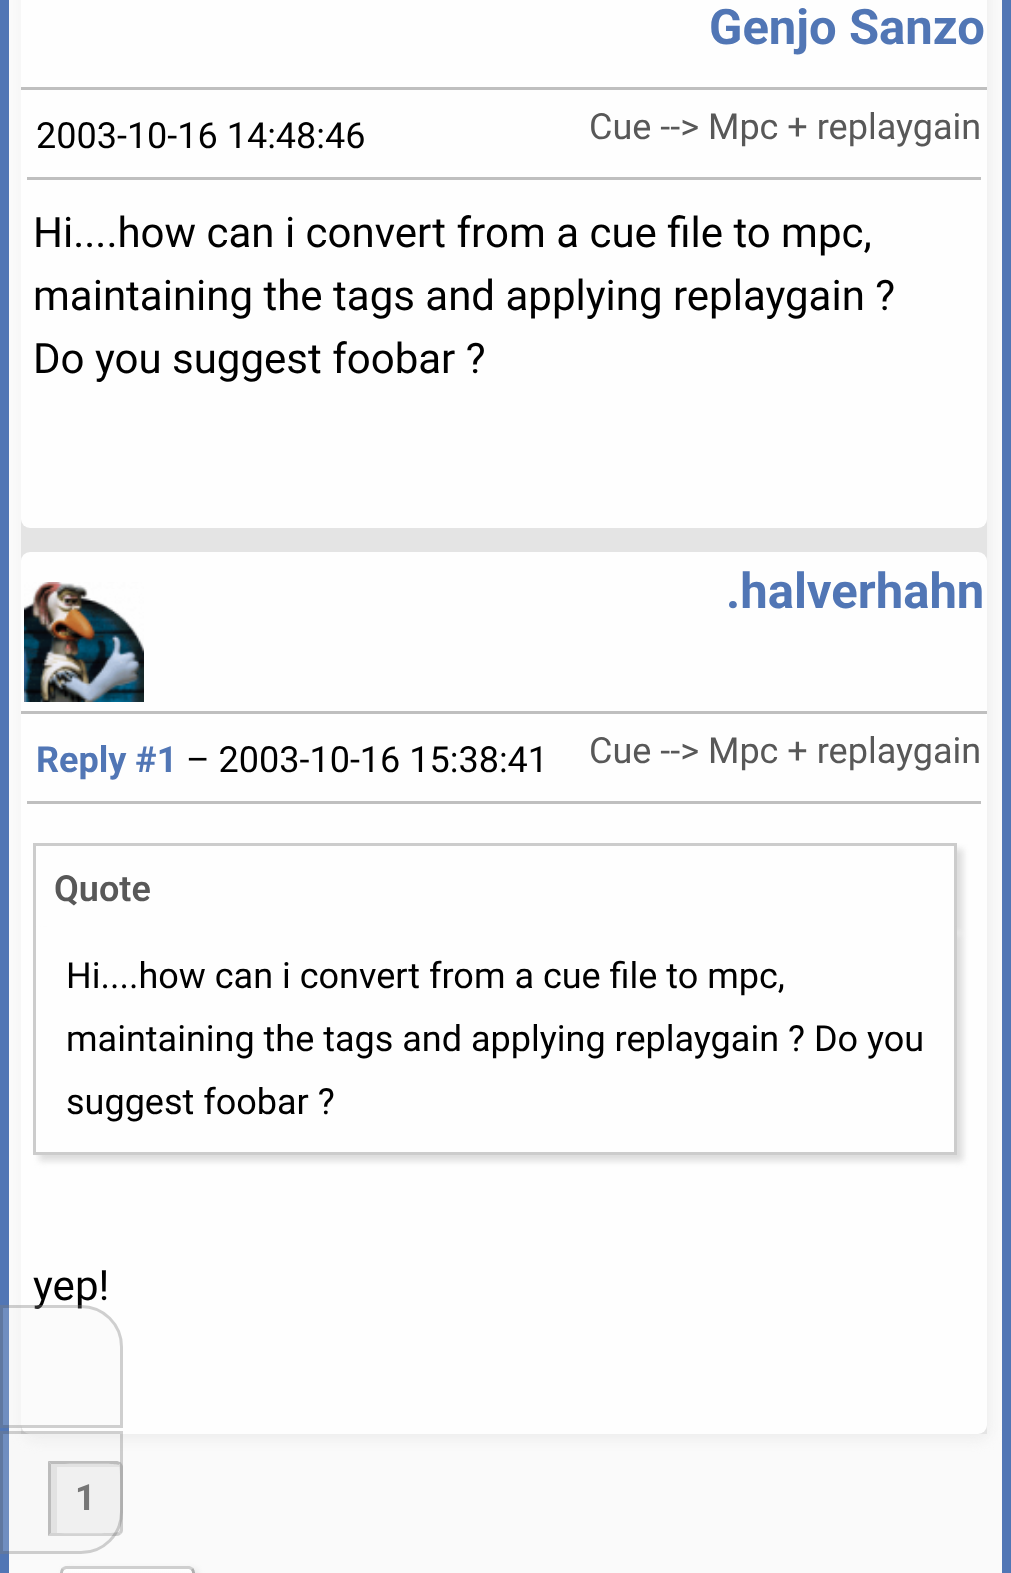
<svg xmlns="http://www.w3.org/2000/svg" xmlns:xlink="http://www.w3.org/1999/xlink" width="1011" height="1573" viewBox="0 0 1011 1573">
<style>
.cls-1{font:bold 49px Roboto;fill:#5176b5}
.cls-2{font:36px Roboto;fill:#000000}
.cls-3{font:36px Roboto;fill:#585858}
.cls-4{font:42px Roboto;fill:#000000}
.cls-5{font:bold 36px Roboto;fill:#5176b5}
.cls-6{font:600 36px Roboto;fill:#585858}
.cls-7{font:bold 36px Roboto;fill:#585858}
</style>
<defs>
<clipPath id="clip1"><rect x="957" y="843" width="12" height="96"/></clipPath>
<clipPath id="clip2"><rect x="60" y="1566" width="135" height="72" rx="6"/></clipPath>
<linearGradient id="g1" gradientUnits="userSpaceOnUse" x1="128" y1="1503" x2="128" y2="1569"><stop offset="0" stop-color="#fefefe"/><stop offset="1" stop-color="#e4e4e4"/></linearGradient>
<linearGradient id="g2" gradientUnits="userSpaceOnUse" x1="128" y1="1569" x2="128" y2="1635"><stop offset="0" stop-color="#fefefe"/><stop offset="1" stop-color="#e4e4e4"/></linearGradient>
</defs>
<rect width="100%" height="100%" fill="#fafafa"/>
<rect fill="none" stroke="#5176b5" stroke-width="9" x="4.5" y="-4.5" width="1002" height="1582"/>
<rect fill="#eeeeee" filter="blur(6px)" x="24" y="-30" width="966" height="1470" rx="12"/>
<rect fill="#e4e4e4" x="21" y="519" width="966" height="915"/>
<rect fill="#fefefe" x="21" y="-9" width="966" height="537" rx="9"/>
<rect fill="#bfbfbf" x="21" y="87" width="966" height="3"/>
<rect fill="#bfbfbf" x="27" y="177" width="954" height="3"/>
<rect fill="#fefefe" x="21" y="552" width="966" height="882" rx="9"/>
<image xlink:href="image0.png" x="24" y="582" width="120" height="120"/>
<rect fill="#bfbfbf" x="21" y="711" width="966" height="3"/>
<rect fill="#bfbfbf" x="27" y="801" width="954" height="3"/>
<g clip-path="url(#clip1)">
<rect fill="#dddddd" filter="blur(3px)" x="39" y="849" width="924" height="84"/>
</g>
<rect fill="#cccccc" x="33" y="843" width="924" height="3"/>
<rect fill="#cccccc" x="954" y="843" width="3" height="84"/>
<rect fill="#cccccc" x="33" y="843" width="3" height="84"/>
<rect fill="#dddddd" filter="blur(3px)" x="39" y="933" width="924" height="228"/>
<rect fill="#fefefe" x="36" y="927" width="918" height="225"/>
<rect fill="#cccccc" x="954" y="927" width="3" height="228"/>
<rect fill="#cccccc" x="33" y="1152" width="924" height="3"/>
<rect fill="#cccccc" x="33" y="927" width="3" height="228"/>
<path fill="#f0f0f0" d="M48 1461H117C120.5 1461 123 1463.5 123 1467V1530C123 1533.5 120.5 1536 117 1536H48Z"/>
<path fill="#dfdfdf" d="M57 1467H120C120 1465 119 1464 117 1464H51V1533H57Z"/>
<path fill="#afafaf" d="M48 1461L51 1464C58 1464 118 1463 119 1465L121 1463C120 1462 118 1461 117 1461Z"/>
<path fill="#cccccc" d="M123 1530V1467C123 1466 122 1464 121 1463L119 1465C121 1467 120 1513 120 1520V1530L119 1532L121 1534C122 1533 123 1532 123 1530Z"/>
<path fill="#cccccc" d="M117 1536C118 1536 120 1535 121 1534L119 1532C118 1534 58 1533 51 1533L48 1536Z"/>
<path fill="#afafaf" d="M48 1461V1536L51 1533V1464Z"/>
<rect fill="#e4e4e4" filter="blur(3px)" x="63" y="1569" width="135" height="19" rx="6"/>
<g clip-path="url(#clip2)">
<rect fill="url(#g1)" x="60" y="1566" width="135" height="3"/>
<rect fill="url(#g2)" x="60" y="1569" width="135" height="4"/>
</g>
<path fill="none" stroke="#cfcfcf" stroke-width="3" d="M63 1569L66 1567.5H189L192 1569"/>
<path fill="none" stroke="#afafaf" stroke-width="3" d="M192 1569C193 1570 193.5 1571 193.5 1572.5V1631.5C193.5 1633 193 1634 192 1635C191 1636 190 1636.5 188.5 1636.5H66.5C65 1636.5 64 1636 63 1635"/>
<path fill="none" stroke="#bfbfbf" stroke-width="3" d="M63 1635C62 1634 61.5 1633 61.5 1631.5V1572.5C61.5 1571 62 1570 63 1569"/>
<text class="cls-1" x="709" y="44">Genjo Sanzo</text>
<text class="cls-2" x="36" y="148">2003-10-16 14:48:46</text>
<text class="cls-3" x="589" y="139">Cue --&gt; Mpc + replaygain</text>
<text class="cls-4"><tspan x="33" y="247">Hi....how can i convert from a cue file to mpc,</tspan><tspan x="33" y="310">maintaining the tags and applying replaygain ?</tspan><tspan x="33" y="373">Do you suggest foobar ?</tspan></text>
<text class="cls-1" x="726" y="608">.halverhahn</text>
<text class="cls-5" x="36" y="772">Reply #1</text>
<text class="cls-2" x="186" y="772">– 2003-10-16 15:38:41</text>
<text class="cls-3" x="589" y="763">Cue --&gt; Mpc + replaygain</text>
<text class="cls-6" x="54" y="901">Quote</text>
<text class="cls-2"><tspan x="66" y="988">Hi....how can i convert from a cue file to mpc,</tspan><tspan x="66" y="1051">maintaining the tags and applying replaygain ? Do you</tspan><tspan x="66" y="1114">suggest foobar ?</tspan></text>
<text class="cls-4" x="33" y="1300">yep!</text>
<text class="cls-7" x="75" y="1510">1</text>
<path fill="#eeeeee" fill-opacity="0.2" d="M0 1305H81C104 1305 123 1324 123 1347V1428H0Z"/>
<path fill="none" stroke="#222222" stroke-opacity="0.2" stroke-width="3" d="M1.5 1306.5H81C103.5 1306.5 121.5 1324.5 121.5 1347V1426.5H1.5Z"/>
<path fill="#eeeeee" fill-opacity="0.2" d="M0 1431H123V1512C123 1535 104 1554 81 1554H0Z"/>
<path fill="none" stroke="#222222" stroke-opacity="0.2" stroke-width="3" d="M1.5 1432.5H121.5V1512C121.5 1534.5 103.5 1552.5 81 1552.5H1.5Z"/>
</svg>
